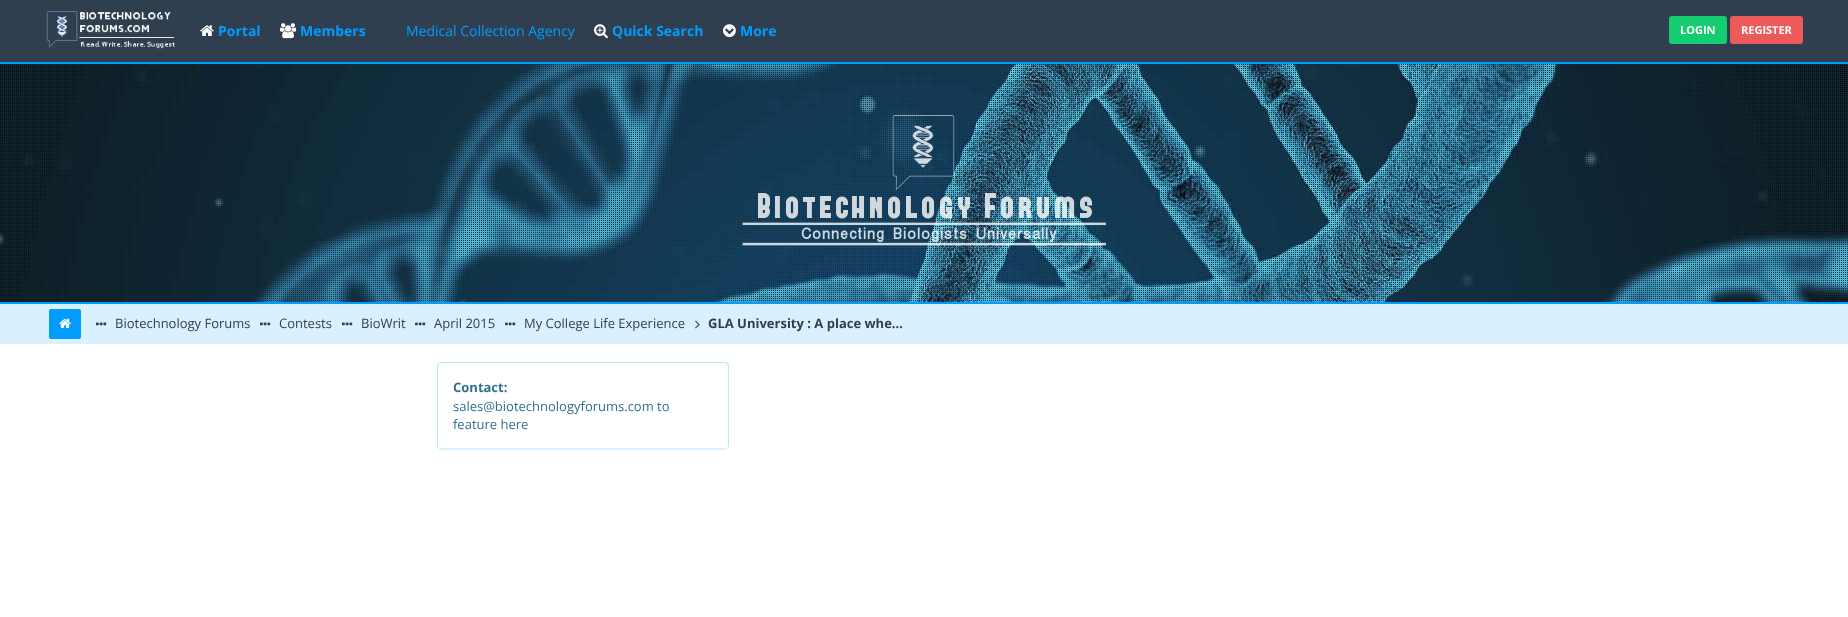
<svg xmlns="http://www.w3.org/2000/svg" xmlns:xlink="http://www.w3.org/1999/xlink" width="1848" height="617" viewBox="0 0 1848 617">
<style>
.cls-1{font:bold 14px Open Sans;fill:#009dff}
.cls-2{font:14px Open Sans;fill:#009dff}
.cls-3{font:bold 11px Open Sans;fill:#ffffff}
.cls-4{font:13px Open Sans;fill:#303f50}
.cls-5{font:bold 13px Open Sans;fill:#303f50}
.cls-6{font:bold 13px Open Sans;fill:#31708f}
.cls-7{font:13px Open Sans;fill:#31708f}
</style>
<rect width="100%" height="100%" fill="#ffffff"/>
<rect fill="#303f50" x="0" y="0" width="1848" height="62"/>
<image xlink:href="image0.png" x="46" y="11" width="129" height="38"/>
<image xlink:href="image1.png" x="200" y="25" width="14" height="11"/>
<image xlink:href="image2.png" x="280" y="23" width="17" height="16"/>
<image xlink:href="image3.png" x="594" y="24" width="14" height="15"/>
<image xlink:href="image4.png" x="723" y="24" width="13" height="14"/>
<rect fill="#16cc70" x="1669" y="16" width="58" height="28" rx="3"/>
<rect fill="#ed5a5a" x="1730" y="16" width="73" height="28" rx="3"/>
<image xlink:href="image5.png" x="0" y="64" width="1848" height="238"/>
<rect fill="#009dff" x="0" y="62" width="1848" height="2"/>
<rect fill="#009dff" x="0" y="302" width="1848" height="2"/>
<image xlink:href="image6.png" x="1" y="64" width="1847" height="237"/>
<image xlink:href="image7.png" x="742" y="115" width="364" height="131"/>
<rect fill="#d9f0ff" x="0" y="304" width="1848" height="40"/>
<rect fill="#009dff" x="49" y="309" width="32" height="30" rx="2"/>
<image xlink:href="image8.png" x="59" y="318" width="12" height="10"/>
<image xlink:href="image9.png" x="96" y="322" width="11" height="4"/>
<image xlink:href="image9.png" x="260" y="322" width="11" height="4"/>
<image xlink:href="image9.png" x="342" y="322" width="11" height="4"/>
<image xlink:href="image9.png" x="415" y="322" width="11" height="4"/>
<image xlink:href="image9.png" x="505" y="322" width="11" height="4"/>
<image xlink:href="image10.png" x="695" y="320" width="5" height="9"/>
<path fill="#bce8f1" d="M441 362L438 363L439 364L441 363H725L727 364L728 363L725 362Z"/>
<path fill="#bce8f1" d="M729 446V366L728 363L727 364L728 366V447V448Z"/>
<path fill="#d9f0ff" d="M441 450H725C726 450 727 449 728 448V447L725 448H441L438 447V448C439 449 440 450 441 450Z"/>
<path fill="#bce8f1" d="M437 366V446L438 448V447V366L439 364L438 363Z"/>
<text class="cls-1" x="218" y="36">Portal</text>
<text class="cls-1" x="300" y="36">Members</text>
<text class="cls-2" x="406" y="36">Medical Collection Agency</text>
<text class="cls-1" x="612" y="36">Quick Search</text>
<text class="cls-1" x="740" y="36">More</text>
<text class="cls-3" x="1680" y="34">LOGIN</text>
<text class="cls-3" x="1741" y="34">REGISTER</text>
<text class="cls-4" x="115" y="328">Biotechnology Forums</text>
<text class="cls-4" x="279" y="328">Contests</text>
<text class="cls-4" x="361" y="328">BioWrit</text>
<text class="cls-4" x="434" y="328">April 2015</text>
<text class="cls-4" x="524" y="328">My College Life Experience</text>
<text class="cls-5" x="708" y="328">GLA University : A place whe…</text>
<text class="cls-6" x="453" y="392">Contact:</text>
<text class="cls-7"><tspan x="453" y="411">sales@biotechnologyforums.com to</tspan><tspan x="453" y="429">feature here</tspan></text>
</svg>
